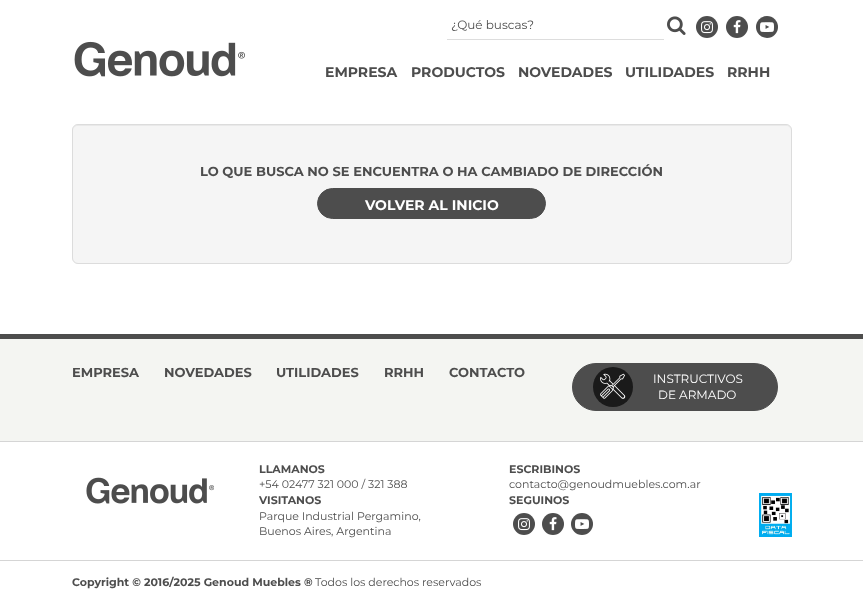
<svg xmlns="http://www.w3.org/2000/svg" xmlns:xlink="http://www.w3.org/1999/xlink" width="863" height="600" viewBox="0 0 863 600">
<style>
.cls-1{font:12px Montserrat;fill:#4d4d4d}
.cls-2{font:bold 14px Montserrat;fill:#4d4d4d}
.cls-3{font:bold 13px Montserrat;fill:#4d4d4d}
.cls-4{font:bold 14px Montserrat;fill:#ffffff}
.cls-5{font:12px Montserrat;fill:#ffffff}
.cls-6{font:bold 11px Montserrat;fill:#4d4d4d}
.cls-7{font:11px Montserrat;fill:#4d4d4d}
</style>
<rect width="100%" height="100%" fill="#ffffff"/>
<rect fill="#dddddd" x="447" y="39" width="217" height="1"/>
<image xlink:href="image0.png" x="667" y="16" width="19" height="19"/>
<circle fill="#4d4d4d" cx="707" cy="27" r="11"/>
<image xlink:href="image1.png" x="701" y="21" width="12" height="13"/>
<circle fill="#4d4d4d" cx="737" cy="27" r="11"/>
<image xlink:href="image2.png" x="733" y="20" width="8" height="14"/>
<circle fill="#4d4d4d" cx="767" cy="27" r="11"/>
<image xlink:href="image3.png" x="760" y="22" width="14" height="10"/>
<image xlink:href="image4.png" x="74" y="41" width="171" height="36"/>
<rect fill="#f5f5f5" x="72" y="124" width="720" height="140" rx="6"/>
<path fill="#e9e9e9" d="M78 126H786C789 126 791 128 791 131C791 128 789 125 786 125H78C75 125 73 128 73 131C73 128 75 126 78 126Z"/>
<rect fill="none" stroke="#dcdcdc" x="72.5" y="124.5" width="719" height="139" rx="5.5"/>
<rect fill="#4d4d4d" stroke="#4d4d4d" x="317.5" y="188.5" width="228" height="30" rx="15"/>
<rect fill="#f4f5f2" x="0" y="339" width="863" height="102"/>
<rect fill="#4d4d4d" x="0" y="334" width="863" height="5"/>
<rect fill="#4d4d4d" stroke="#4d4d4d" x="572.5" y="363.5" width="205" height="47" rx="23.5"/>
<circle fill="#1a1a1a" cx="613" cy="387" r="20"/>
<image xlink:href="image5.png" x="600" y="373" width="26" height="26"/>
<rect fill="#d5d5d5" x="0" y="441" width="863" height="1"/>
<image xlink:href="image6.png" x="86" y="477" width="128" height="27"/>
<image xlink:href="image7.png" x="759" y="493" width="33" height="44"/>
<circle fill="#4d4d4d" cx="524" cy="524" r="11"/>
<image xlink:href="image1.png" x="518" y="518" width="12" height="13"/>
<circle fill="#4d4d4d" cx="553" cy="524" r="11"/>
<image xlink:href="image2.png" x="549" y="517" width="8" height="14"/>
<circle fill="#4d4d4d" cx="582" cy="524" r="11"/>
<image xlink:href="image3.png" x="575" y="519" width="14" height="10"/>
<rect fill="#d5d5d5" x="0" y="560" width="863" height="1"/>
<text class="cls-1" x="451" y="29">¿Qué buscas?</text>
<text class="cls-2" x="325" y="77">EMPRESA</text>
<text class="cls-2" x="411" y="77">PRODUCTOS</text>
<text class="cls-2" x="518" y="77">NOVEDADES</text>
<text class="cls-2" x="625" y="77">UTILIDADES</text>
<text class="cls-2" x="727" y="77">RRHH</text>
<text class="cls-3" x="200" y="176">LO QUE BUSCA NO SE ENCUENTRA O HA CAMBIADO DE DIRECCIÓN</text>
<text class="cls-4" x="365" y="210">VOLVER AL INICIO</text>
<text class="cls-3" x="72" y="377">EMPRESA</text>
<text class="cls-3" x="164" y="377">NOVEDADES</text>
<text class="cls-3" x="276" y="377">UTILIDADES</text>
<text class="cls-3" x="384" y="377">RRHH</text>
<text class="cls-3" x="449" y="377">CONTACTO</text>
<text class="cls-5" x="653" y="383">INSTRUCTIVOS</text>
<text class="cls-5" x="658" y="399">DE ARMADO</text>
<text class="cls-6" x="259" y="473">LLAMANOS</text>
<text class="cls-7" x="259" y="488">+54 02477 321 000 / 321 388</text>
<text class="cls-6" x="509" y="473">ESCRIBINOS</text>
<text class="cls-7" x="509" y="488">contacto@genoudmuebles.com.ar</text>
<text class="cls-6" x="259" y="504">VISITANOS</text>
<text class="cls-7"><tspan x="259" y="520">Parque Industrial Pergamino,</tspan><tspan x="259" y="535">Buenos Aires, Argentina</tspan></text>
<text class="cls-6" x="509" y="504">SEGUINOS</text>
<text class="cls-6" x="72" y="586">Copyright © 2016/2025 Genoud Muebles ®</text>
<text class="cls-7" x="315" y="586">Todos los derechos reservados</text>
</svg>
